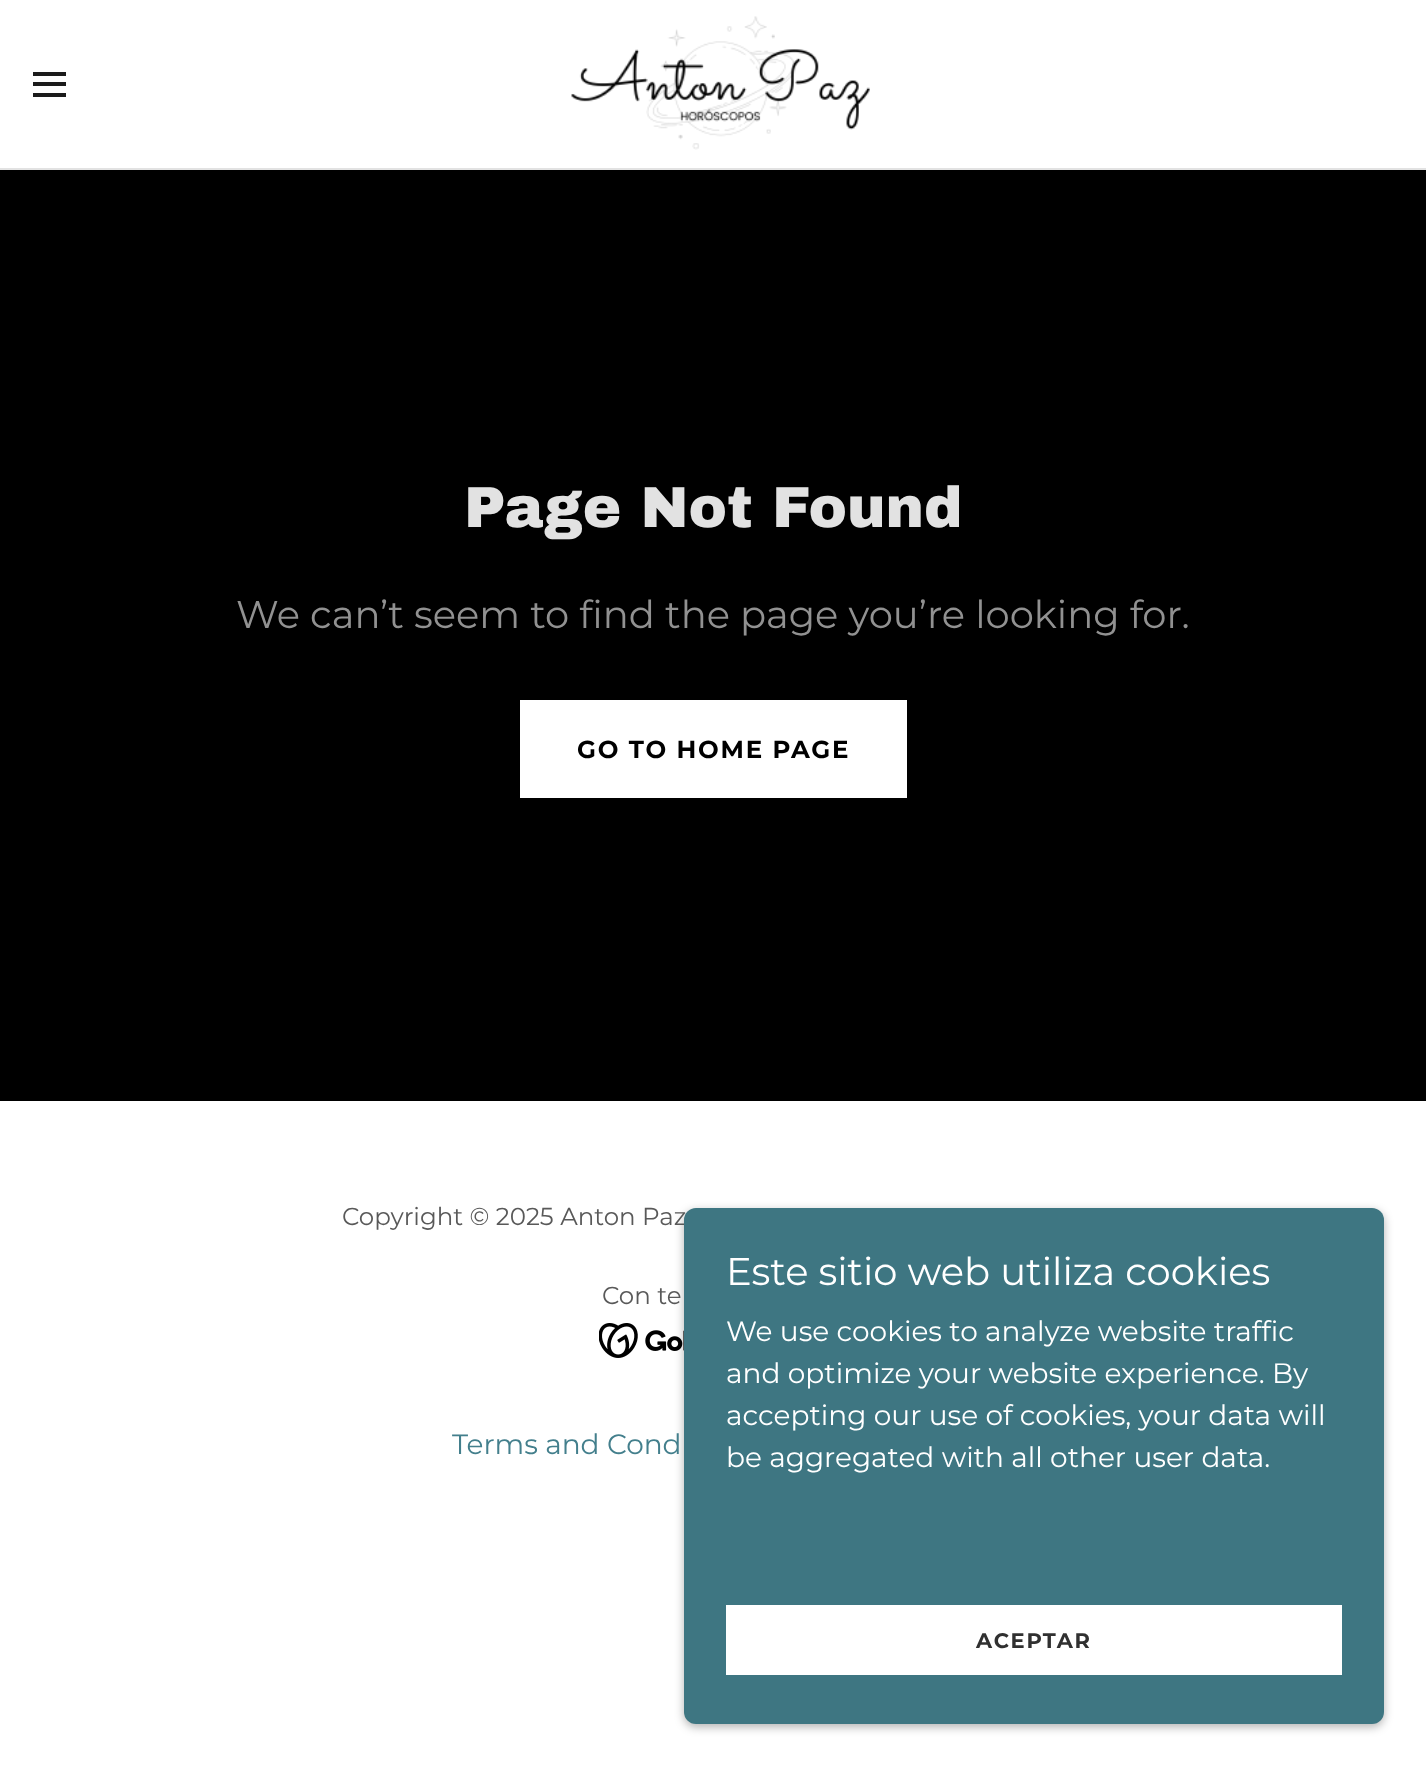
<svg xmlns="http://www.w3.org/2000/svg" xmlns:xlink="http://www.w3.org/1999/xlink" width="1426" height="1765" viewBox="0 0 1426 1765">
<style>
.cls-1{font:900 57.75px Archivo Black;fill:#e2e2e2}
.cls-2{font:38.5px Montserrat;fill:#919191}
.cls-3{font:bold 24.5px Montserrat;letter-spacing:1.75px;fill:#000000}
.cls-4{font:24.5px Montserrat;fill:#595959}
.cls-5{font:28px Montserrat;fill:#437f8c}
.cls-6{font:38.5px Montserrat;fill:#ffffff}
.cls-7{font:28px Montserrat;fill:#ffffff}
.cls-8{font:bold 21px Montserrat;letter-spacing:1.75px;fill:#303030}
</style>
<rect width="100%" height="100%" fill="#ffffff"/>
<rect fill="#1b1b1b" x="33" y="72" width="33" height="4"/>
<rect fill="#1b1b1b" x="33" y="82" width="33" height="4"/>
<rect fill="#1b1b1b" x="33" y="93" width="33" height="4"/>
<image xlink:href="image0.png" x="571" y="16" width="299" height="134"/>
<rect fill="#e2e2e2" x="0" y="168" width="1426" height="2"/>
<rect fill="#000000" x="0" y="170" width="1426" height="931"/>
<rect fill="#ffffff" x="520" y="700" width="387" height="98"/>
<image xlink:href="image1.png" x="599" y="1323" width="85" height="35"/>
<rect fill="#000000" fill-opacity="0.3" filter="blur(5px)" x="684" y="1211" width="700" height="516" rx="12"/>
<text class="cls-1" x="464" y="527">Page Not Found</text>
<text class="cls-2" x="236" y="628">We can’t seem to find the page you’re looking for.</text>
<text class="cls-3" x="577" y="758">GO TO HOME PAGE</text>
<text class="cls-4" x="342" y="1225">Copyright © 2025 Anton Paz</text>
<text class="cls-4" x="602" y="1304">Con te</text>
<text class="cls-5" x="452" y="1454">Terms and Cond</text>
<rect fill="#3e7682" x="684" y="1208" width="700" height="516" rx="12"/>
<text class="cls-6" x="726" y="1285">Este sitio web utiliza cookies</text>
<text class="cls-7"><tspan x="726" y="1341">We use cookies to analyze website traffic</tspan><tspan x="726" y="1383">and optimize your website experience. By</tspan><tspan x="726" y="1425">accepting our use of cookies, your data will</tspan><tspan x="726" y="1467">be aggregated with all other user data.</tspan></text>
<rect fill="#ffffff" x="726" y="1605" width="616" height="70"/>
<text class="cls-8" x="976" y="1648">ACEPTAR</text>
</svg>
